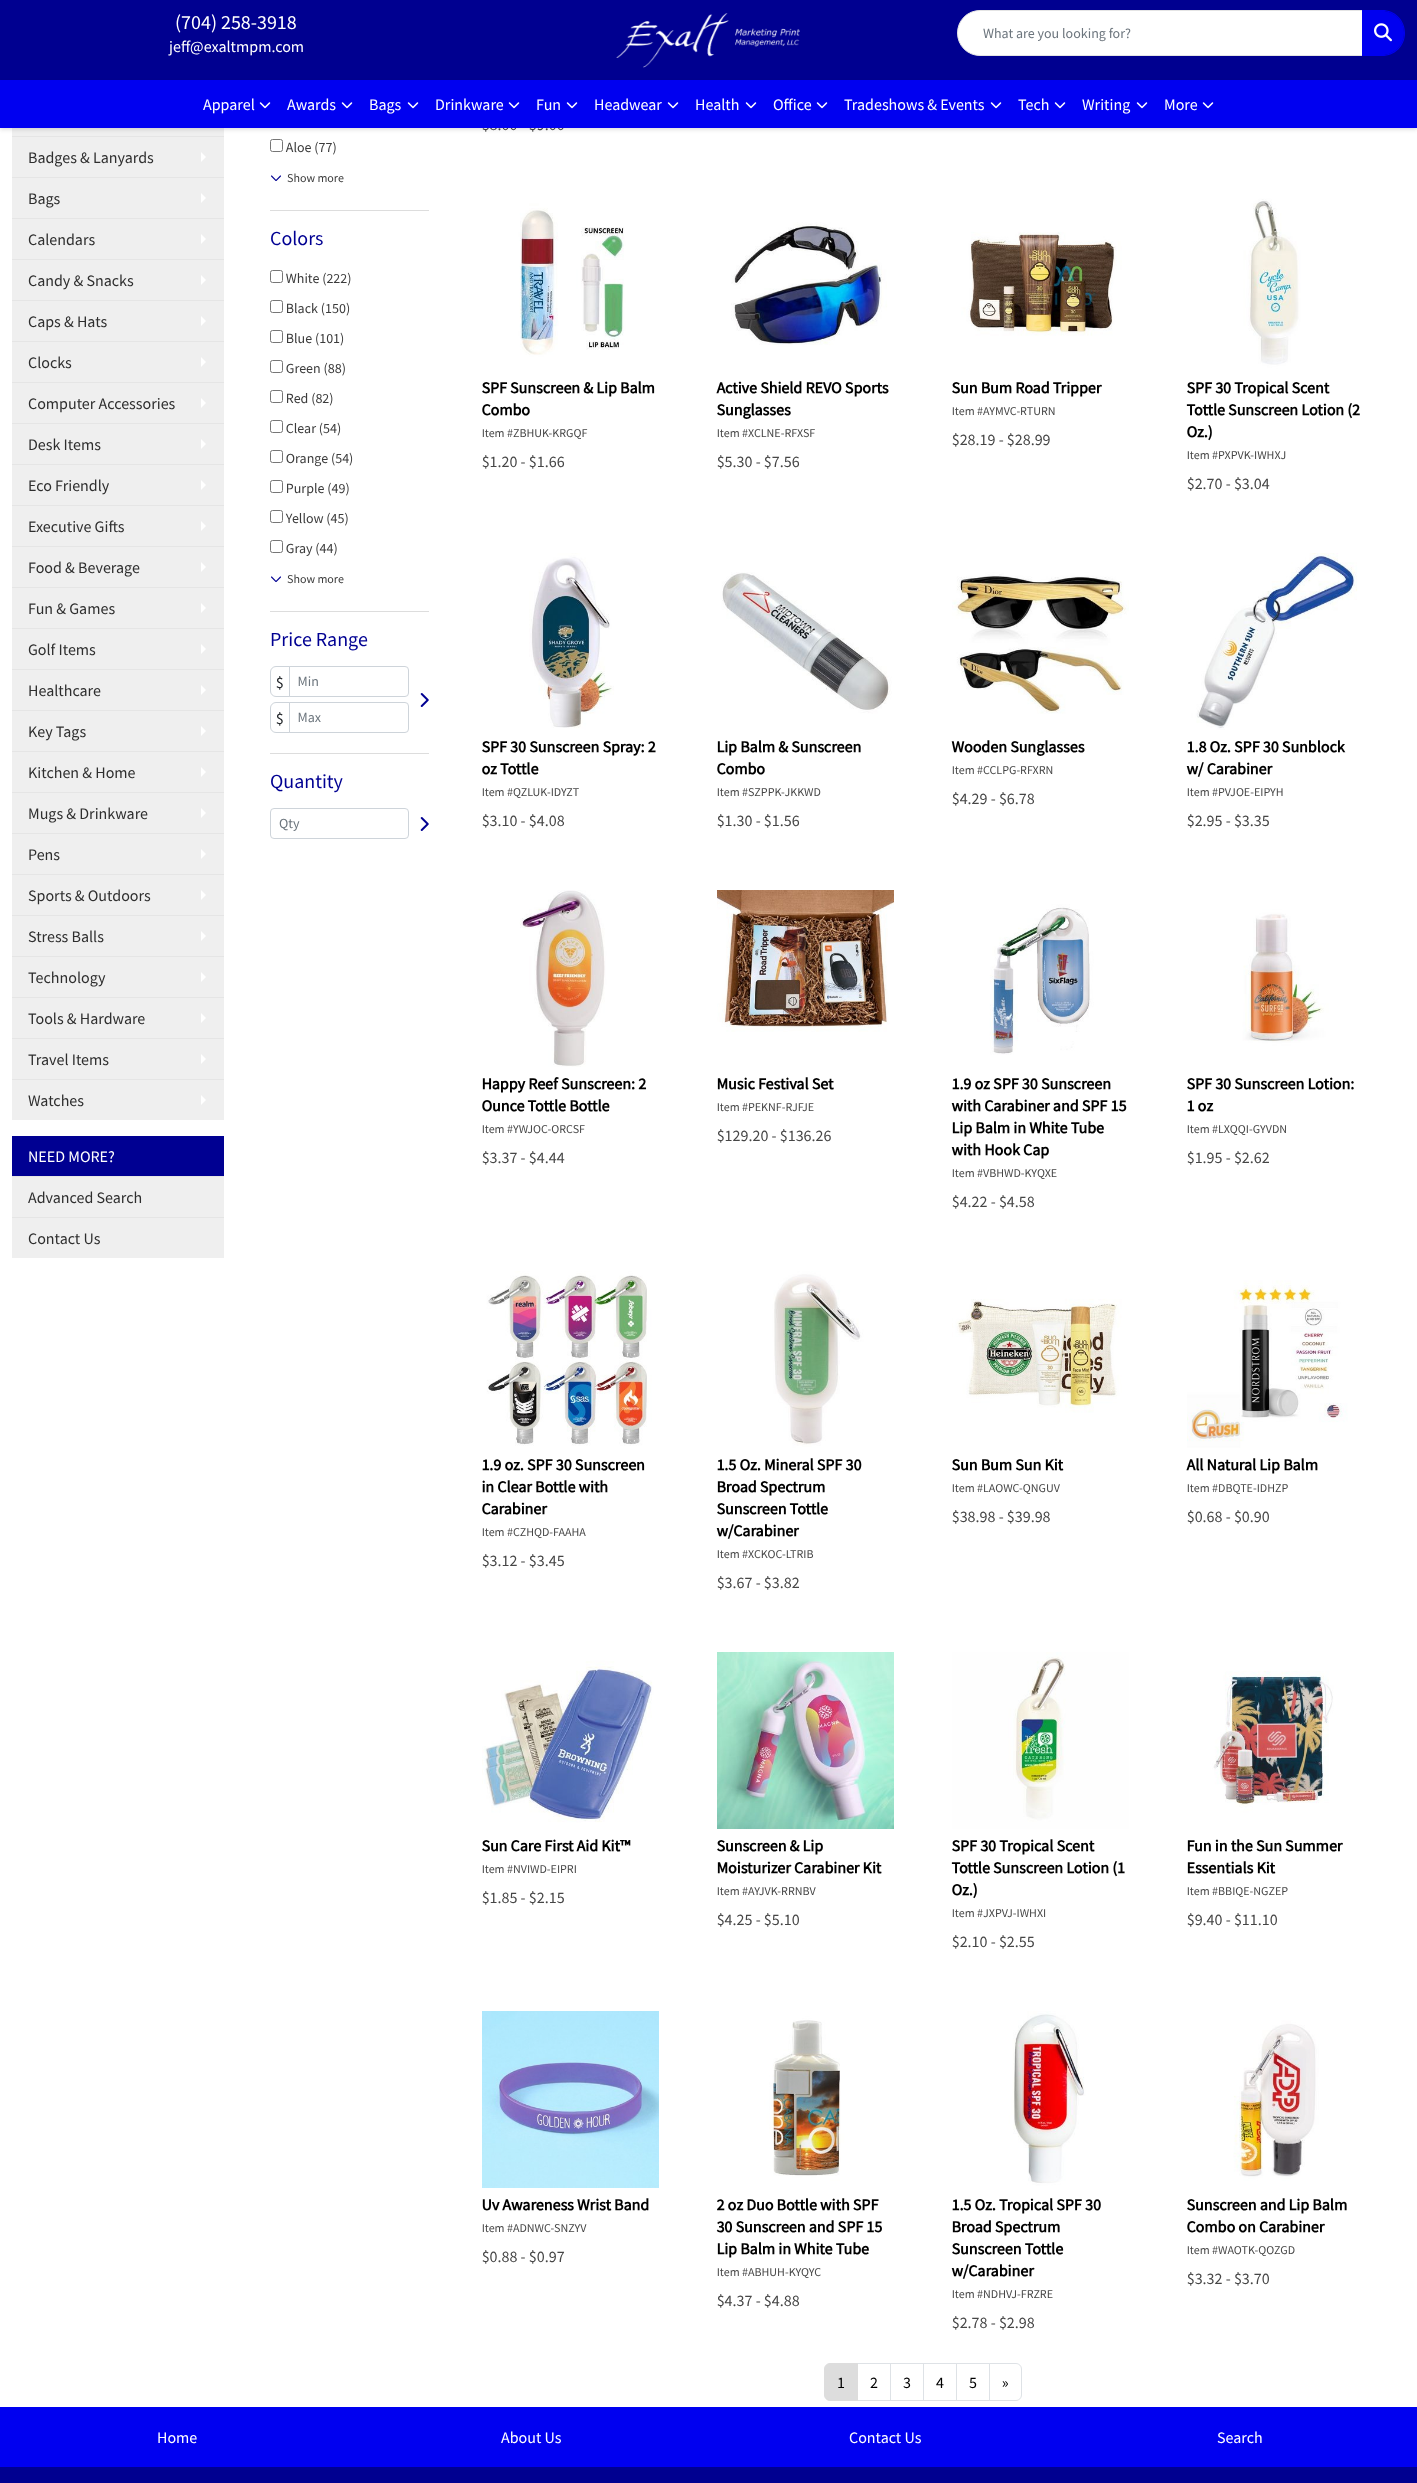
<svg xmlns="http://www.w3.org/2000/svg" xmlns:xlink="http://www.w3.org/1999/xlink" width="1417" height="2483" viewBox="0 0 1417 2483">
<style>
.cls-1{font:20px Source Sans Pro;fill:#ffffff}
.cls-2{font:16px Source Sans Pro;fill:#ffffff}
.cls-3{font:14px Source Sans Pro;fill:#6c757d}
.cls-4{font:16px Source Sans Pro;fill:#2e2e2e}
</style>
<rect width="100%" height="100%" fill="#ffffff"/>
<rect fill="#efefef" x="12" y="128" width="212" height="8"/>
<rect fill="#e5e5e5" x="12" y="136" width="212" height="1"/>
<image xlink:href="image3.png" x="270" y="128" width="1090" height="2273"/>
<rect fill="#000000" fill-opacity="0.1" filter="blur(2.5px)" x="0" y="0" width="1417" height="128"/>
<rect fill="#000090" x="0" y="0" width="1417" height="80"/>
<image xlink:href="image0.png" x="616" y="13" width="184" height="55"/>
<path fill="#ffffff" stroke="#e4e4e4" d="M980 10.5H1362.5V55.5H980C967.5 55.5 957.5 45.5 957.5 33C957.5 20.5 967.5 10.5 980 10.5Z"/>
<path fill="#0000f0" d="M1362 11H1382C1394 11 1404 21 1404 33C1404 45 1394 55 1382 55H1362Z"/>
<path fill="#0000f0" fill-rule="evenodd" d="M1362 10H1382C1395 10 1405 20 1405 33C1405 46 1395 56 1382 56H1362ZM1362 11H1382C1394 11 1404 21 1404 33C1404 45 1394 55 1382 55H1362Z"/>
<image xlink:href="image1.png" x="1374" y="23" width="18" height="19"/>
<rect fill="#000000" fill-opacity="0.07" filter="blur(2px)" x="0" y="82" width="1417" height="48"/>
<rect fill="#0000f0" x="0" y="80" width="1417" height="48"/>
<image xlink:href="image2.png" x="259" y="102" width="12" height="7"/>
<image xlink:href="image2.png" x="341" y="102" width="12" height="7"/>
<image xlink:href="image2.png" x="407" y="102" width="12" height="7"/>
<image xlink:href="image2.png" x="508" y="102" width="12" height="7"/>
<image xlink:href="image2.png" x="566" y="102" width="12" height="7"/>
<image xlink:href="image2.png" x="667" y="102" width="12" height="7"/>
<image xlink:href="image2.png" x="745" y="102" width="12" height="7"/>
<image xlink:href="image2.png" x="816" y="102" width="12" height="7"/>
<image xlink:href="image2.png" x="990" y="102" width="12" height="7"/>
<image xlink:href="image2.png" x="1054" y="102" width="12" height="7"/>
<image xlink:href="image2.png" x="1136" y="102" width="12" height="7"/>
<image xlink:href="image2.png" x="1202" y="102" width="12" height="7"/>
<rect fill="#efefef" x="12" y="137" width="212" height="40"/>
<path fill="#ffffff" d="M201 162V152L206 157Z"/>
<rect fill="#efefef" x="12" y="178" width="212" height="40"/>
<rect fill="#e5e5e5" x="12" y="177" width="212" height="1"/>
<path fill="#ffffff" d="M201 203V193L206 198Z"/>
<rect fill="#efefef" x="12" y="219" width="212" height="40"/>
<rect fill="#e5e5e5" x="12" y="218" width="212" height="1"/>
<path fill="#ffffff" d="M201 244V234L206 239Z"/>
<rect fill="#efefef" x="12" y="260" width="212" height="40"/>
<rect fill="#e5e5e5" x="12" y="259" width="212" height="1"/>
<path fill="#ffffff" d="M201 285V275L206 280Z"/>
<rect fill="#efefef" x="12" y="301" width="212" height="40"/>
<rect fill="#e5e5e5" x="12" y="300" width="212" height="1"/>
<path fill="#ffffff" d="M201 326V316L206 321Z"/>
<rect fill="#efefef" x="12" y="342" width="212" height="40"/>
<rect fill="#e5e5e5" x="12" y="341" width="212" height="1"/>
<path fill="#ffffff" d="M201 367V357L206 362Z"/>
<rect fill="#efefef" x="12" y="383" width="212" height="40"/>
<rect fill="#e5e5e5" x="12" y="382" width="212" height="1"/>
<path fill="#ffffff" d="M201 408V398L206 403Z"/>
<rect fill="#efefef" x="12" y="424" width="212" height="40"/>
<rect fill="#e5e5e5" x="12" y="423" width="212" height="1"/>
<path fill="#ffffff" d="M201 449V439L206 444Z"/>
<rect fill="#efefef" x="12" y="465" width="212" height="40"/>
<rect fill="#e5e5e5" x="12" y="464" width="212" height="1"/>
<path fill="#ffffff" d="M201 490V480L206 485Z"/>
<rect fill="#efefef" x="12" y="506" width="212" height="40"/>
<rect fill="#e5e5e5" x="12" y="505" width="212" height="1"/>
<path fill="#ffffff" d="M201 531V521L206 526Z"/>
<rect fill="#efefef" x="12" y="547" width="212" height="40"/>
<rect fill="#e5e5e5" x="12" y="546" width="212" height="1"/>
<path fill="#ffffff" d="M201 572V562L206 567Z"/>
<rect fill="#efefef" x="12" y="588" width="212" height="40"/>
<rect fill="#e5e5e5" x="12" y="587" width="212" height="1"/>
<path fill="#ffffff" d="M201 613V603L206 608Z"/>
<rect fill="#efefef" x="12" y="629" width="212" height="40"/>
<rect fill="#e5e5e5" x="12" y="628" width="212" height="1"/>
<path fill="#ffffff" d="M201 654V644L206 649Z"/>
<rect fill="#efefef" x="12" y="670" width="212" height="40"/>
<rect fill="#e5e5e5" x="12" y="669" width="212" height="1"/>
<path fill="#ffffff" d="M201 695V685L206 690Z"/>
<rect fill="#efefef" x="12" y="711" width="212" height="40"/>
<rect fill="#e5e5e5" x="12" y="710" width="212" height="1"/>
<path fill="#ffffff" d="M201 736V726L206 731Z"/>
<rect fill="#efefef" x="12" y="752" width="212" height="40"/>
<rect fill="#e5e5e5" x="12" y="751" width="212" height="1"/>
<path fill="#ffffff" d="M201 777V767L206 772Z"/>
<rect fill="#efefef" x="12" y="793" width="212" height="40"/>
<rect fill="#e5e5e5" x="12" y="792" width="212" height="1"/>
<path fill="#ffffff" d="M201 818V808L206 813Z"/>
<rect fill="#efefef" x="12" y="834" width="212" height="40"/>
<rect fill="#e5e5e5" x="12" y="833" width="212" height="1"/>
<path fill="#ffffff" d="M201 859V849L206 854Z"/>
<rect fill="#efefef" x="12" y="875" width="212" height="40"/>
<rect fill="#e5e5e5" x="12" y="874" width="212" height="1"/>
<path fill="#ffffff" d="M201 900V890L206 895Z"/>
<rect fill="#efefef" x="12" y="916" width="212" height="40"/>
<rect fill="#e5e5e5" x="12" y="915" width="212" height="1"/>
<path fill="#ffffff" d="M201 941V931L206 936Z"/>
<rect fill="#efefef" x="12" y="957" width="212" height="40"/>
<rect fill="#e5e5e5" x="12" y="956" width="212" height="1"/>
<path fill="#ffffff" d="M201 982V972L206 977Z"/>
<rect fill="#efefef" x="12" y="998" width="212" height="40"/>
<rect fill="#e5e5e5" x="12" y="997" width="212" height="1"/>
<path fill="#ffffff" d="M201 1023V1013L206 1018Z"/>
<rect fill="#efefef" x="12" y="1039" width="212" height="40"/>
<rect fill="#e5e5e5" x="12" y="1038" width="212" height="1"/>
<path fill="#ffffff" d="M201 1064V1054L206 1059Z"/>
<rect fill="#efefef" x="12" y="1080" width="212" height="40"/>
<rect fill="#e5e5e5" x="12" y="1079" width="212" height="1"/>
<path fill="#ffffff" d="M201 1105V1095L206 1100Z"/>
<rect fill="#000092" x="12" y="1136" width="212" height="40"/>
<rect fill="#efefef" x="12" y="1177" width="212" height="40"/>
<rect fill="#e5e5e5" x="12" y="1176" width="212" height="1"/>
<rect fill="#efefef" x="12" y="1218" width="212" height="40"/>
<rect fill="#e5e5e5" x="12" y="1217" width="212" height="1"/>
<rect fill="#0000f0" x="0" y="2407" width="1417" height="60"/>
<rect fill="#000090" x="0" y="2467" width="1417" height="16"/>
<text class="cls-1" x="175" y="29">(704) 258-3918</text>
<text class="cls-2" x="169" y="52">jeff@exaltmpm.com</text>
<text class="cls-3" x="983" y="38">What are you looking for?</text>
<text class="cls-2" x="203" y="110">Apparel</text>
<text class="cls-2" x="287" y="110">Awards</text>
<text class="cls-2" x="369" y="110">Bags</text>
<text class="cls-2" x="435" y="110">Drinkware</text>
<text class="cls-2" x="536" y="110">Fun</text>
<text class="cls-2" x="594" y="110">Headwear</text>
<text class="cls-2" x="695" y="110">Health</text>
<text class="cls-2" x="773" y="110">Office</text>
<text class="cls-2" x="844" y="110">Tradeshows &amp; Events</text>
<text class="cls-2" x="1018" y="110">Tech</text>
<text class="cls-2" x="1082" y="110">Writing</text>
<text class="cls-2" x="1164" y="110">More</text>
<text class="cls-4" x="28" y="163">Badges &amp; Lanyards</text>
<text class="cls-4" x="28" y="204">Bags</text>
<text class="cls-4" x="28" y="245">Calendars</text>
<text class="cls-4" x="28" y="286">Candy &amp; Snacks</text>
<text class="cls-4" x="28" y="327">Caps &amp; Hats</text>
<text class="cls-4" x="28" y="368">Clocks</text>
<text class="cls-4" x="28" y="409">Computer Accessories</text>
<text class="cls-4" x="28" y="450">Desk Items</text>
<text class="cls-4" x="28" y="491">Eco Friendly</text>
<text class="cls-4" x="28" y="532">Executive Gifts</text>
<text class="cls-4" x="28" y="573">Food &amp; Beverage</text>
<text class="cls-4" x="28" y="614">Fun &amp; Games</text>
<text class="cls-4" x="28" y="655">Golf Items</text>
<text class="cls-4" x="28" y="696">Healthcare</text>
<text class="cls-4" x="28" y="737">Key Tags</text>
<text class="cls-4" x="28" y="778">Kitchen &amp; Home</text>
<text class="cls-4" x="28" y="819">Mugs &amp; Drinkware</text>
<text class="cls-4" x="28" y="860">Pens</text>
<text class="cls-4" x="28" y="901">Sports &amp; Outdoors</text>
<text class="cls-4" x="28" y="942">Stress Balls</text>
<text class="cls-4" x="28" y="983">Technology</text>
<text class="cls-4" x="28" y="1024">Tools &amp; Hardware</text>
<text class="cls-4" x="28" y="1065">Travel Items</text>
<text class="cls-4" x="28" y="1106">Watches</text>
<text class="cls-2" x="28" y="1162">NEED MORE?</text>
<text class="cls-4" x="28" y="1203">Advanced Search</text>
<text class="cls-4" x="28" y="1244">Contact Us</text>
<text class="cls-2" x="157" y="2443">Home</text>
<text class="cls-2" x="501" y="2443">About Us</text>
<text class="cls-2" x="849" y="2443">Contact Us</text>
<text class="cls-2" x="1217" y="2443">Search</text>
</svg>
